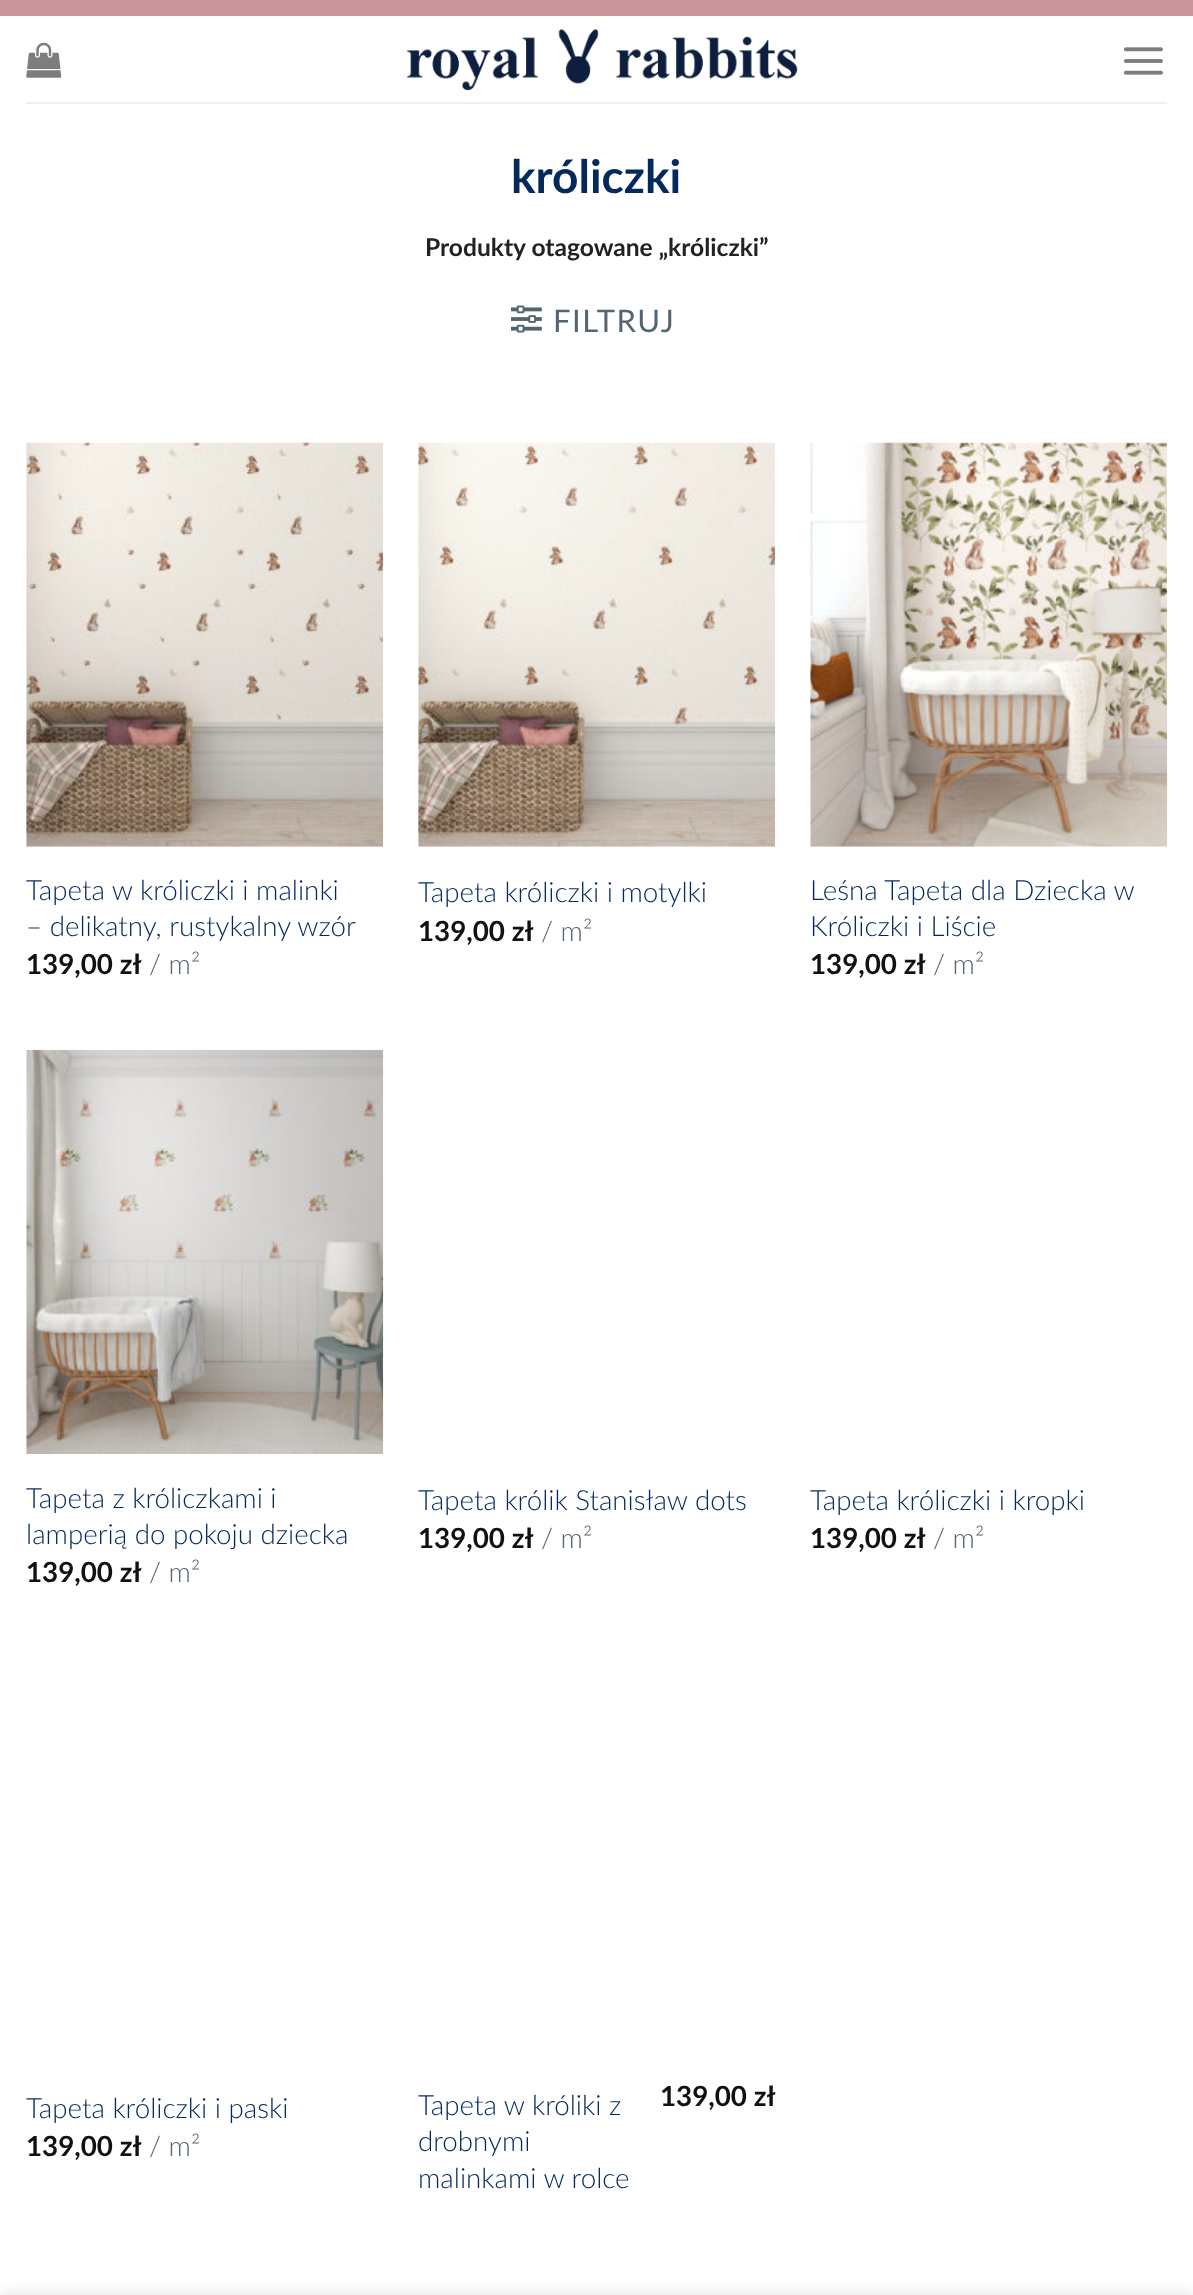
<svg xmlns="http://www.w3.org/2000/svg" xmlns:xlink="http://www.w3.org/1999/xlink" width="1193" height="2295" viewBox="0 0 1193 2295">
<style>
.cls-1{font:bold 46px Lato;fill:#03295d}
.cls-2{font:bold 24.6px Lato;fill:#222222}
.cls-3{font:31px Lato;letter-spacing:1.5px;fill:#54656f}
.cls-4{font:300 27.75px Lato;fill:#03295d}
.cls-5{font:bold 27.75px Lato;fill:#111111}
.cls-6{font:300 27.75px Lato;fill:#54656f}
</style>
<rect width="100%" height="100%" fill="#ffffff"/>
<rect fill="#c9959a" x="0" y="0" width="1193" height="16"/>
<image xlink:href="image0.png" x="26" y="42" width="36" height="36"/>
<image xlink:href="image1.png" x="407" y="28" width="391" height="63"/>
<image xlink:href="image2.png" x="1123" y="47" width="40" height="28"/>
<rect fill="#eef0f1" x="26" y="102" width="1141" height="2"/>
<image xlink:href="image3.png" x="511" y="305" width="31" height="28"/>
<image xlink:href="image4.png" x="26" y="442" width="358" height="405"/>
<image xlink:href="image5.png" x="418" y="442" width="358" height="405"/>
<image xlink:href="image6.png" x="810" y="442" width="358" height="405"/>
<image xlink:href="image7.png" x="26" y="1049" width="358" height="405"/>
<rect fill="#000000" fill-opacity="0.14" filter="blur(8px)" x="0" y="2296" width="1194" height="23"/>
<text class="cls-1" x="511" y="193">króliczki</text>
<text class="cls-2" x="425" y="256">Produkty otagowane „króliczki”</text>
<text class="cls-3" x="553" y="332">FILTRUJ</text>
<text class="cls-4"><tspan x="26" y="900">Tapeta w króliczki i malinki</tspan><tspan x="26" y="936">– delikatny, rustykalny wzór</tspan></text>
<text class="cls-5" x="26" y="974">139,00 zł</text>
<text class="cls-6" x="149" y="974">/ m²</text>
<text class="cls-4" x="418" y="902">Tapeta króliczki i motylki</text>
<text class="cls-5" x="418" y="941">139,00 zł</text>
<text class="cls-6" x="541" y="941">/ m²</text>
<text class="cls-4"><tspan x="810" y="900">Leśna Tapeta dla Dziecka w</tspan><tspan x="810" y="936">Króliczki i Liście</tspan></text>
<text class="cls-5" x="810" y="974">139,00 zł</text>
<text class="cls-6" x="933" y="974">/ m²</text>
<text class="cls-4"><tspan x="26" y="1508">Tapeta z króliczkami i</tspan><tspan x="26" y="1544">lamperią do pokoju dziecka</tspan></text>
<text class="cls-5" x="26" y="1582">139,00 zł</text>
<text class="cls-6" x="149" y="1582">/ m²</text>
<text class="cls-4" x="418" y="1510">Tapeta królik Stanisław dots</text>
<text class="cls-5" x="418" y="1548">139,00 zł</text>
<text class="cls-6" x="541" y="1548">/ m²</text>
<text class="cls-4" x="810" y="1510">Tapeta króliczki i kropki</text>
<text class="cls-5" x="810" y="1548">139,00 zł</text>
<text class="cls-6" x="933" y="1548">/ m²</text>
<text class="cls-4" x="26" y="2118">Tapeta króliczki i paski</text>
<text class="cls-5" x="26" y="2156">139,00 zł</text>
<text class="cls-6" x="149" y="2156">/ m²</text>
<text class="cls-4"><tspan x="418" y="2115">Tapeta w króliki z</tspan><tspan x="418" y="2151">drobnymi</tspan><tspan x="418" y="2188">malinkami w rolce</tspan></text>
<text class="cls-5" x="660" y="2106">139,00 zł</text>
</svg>
